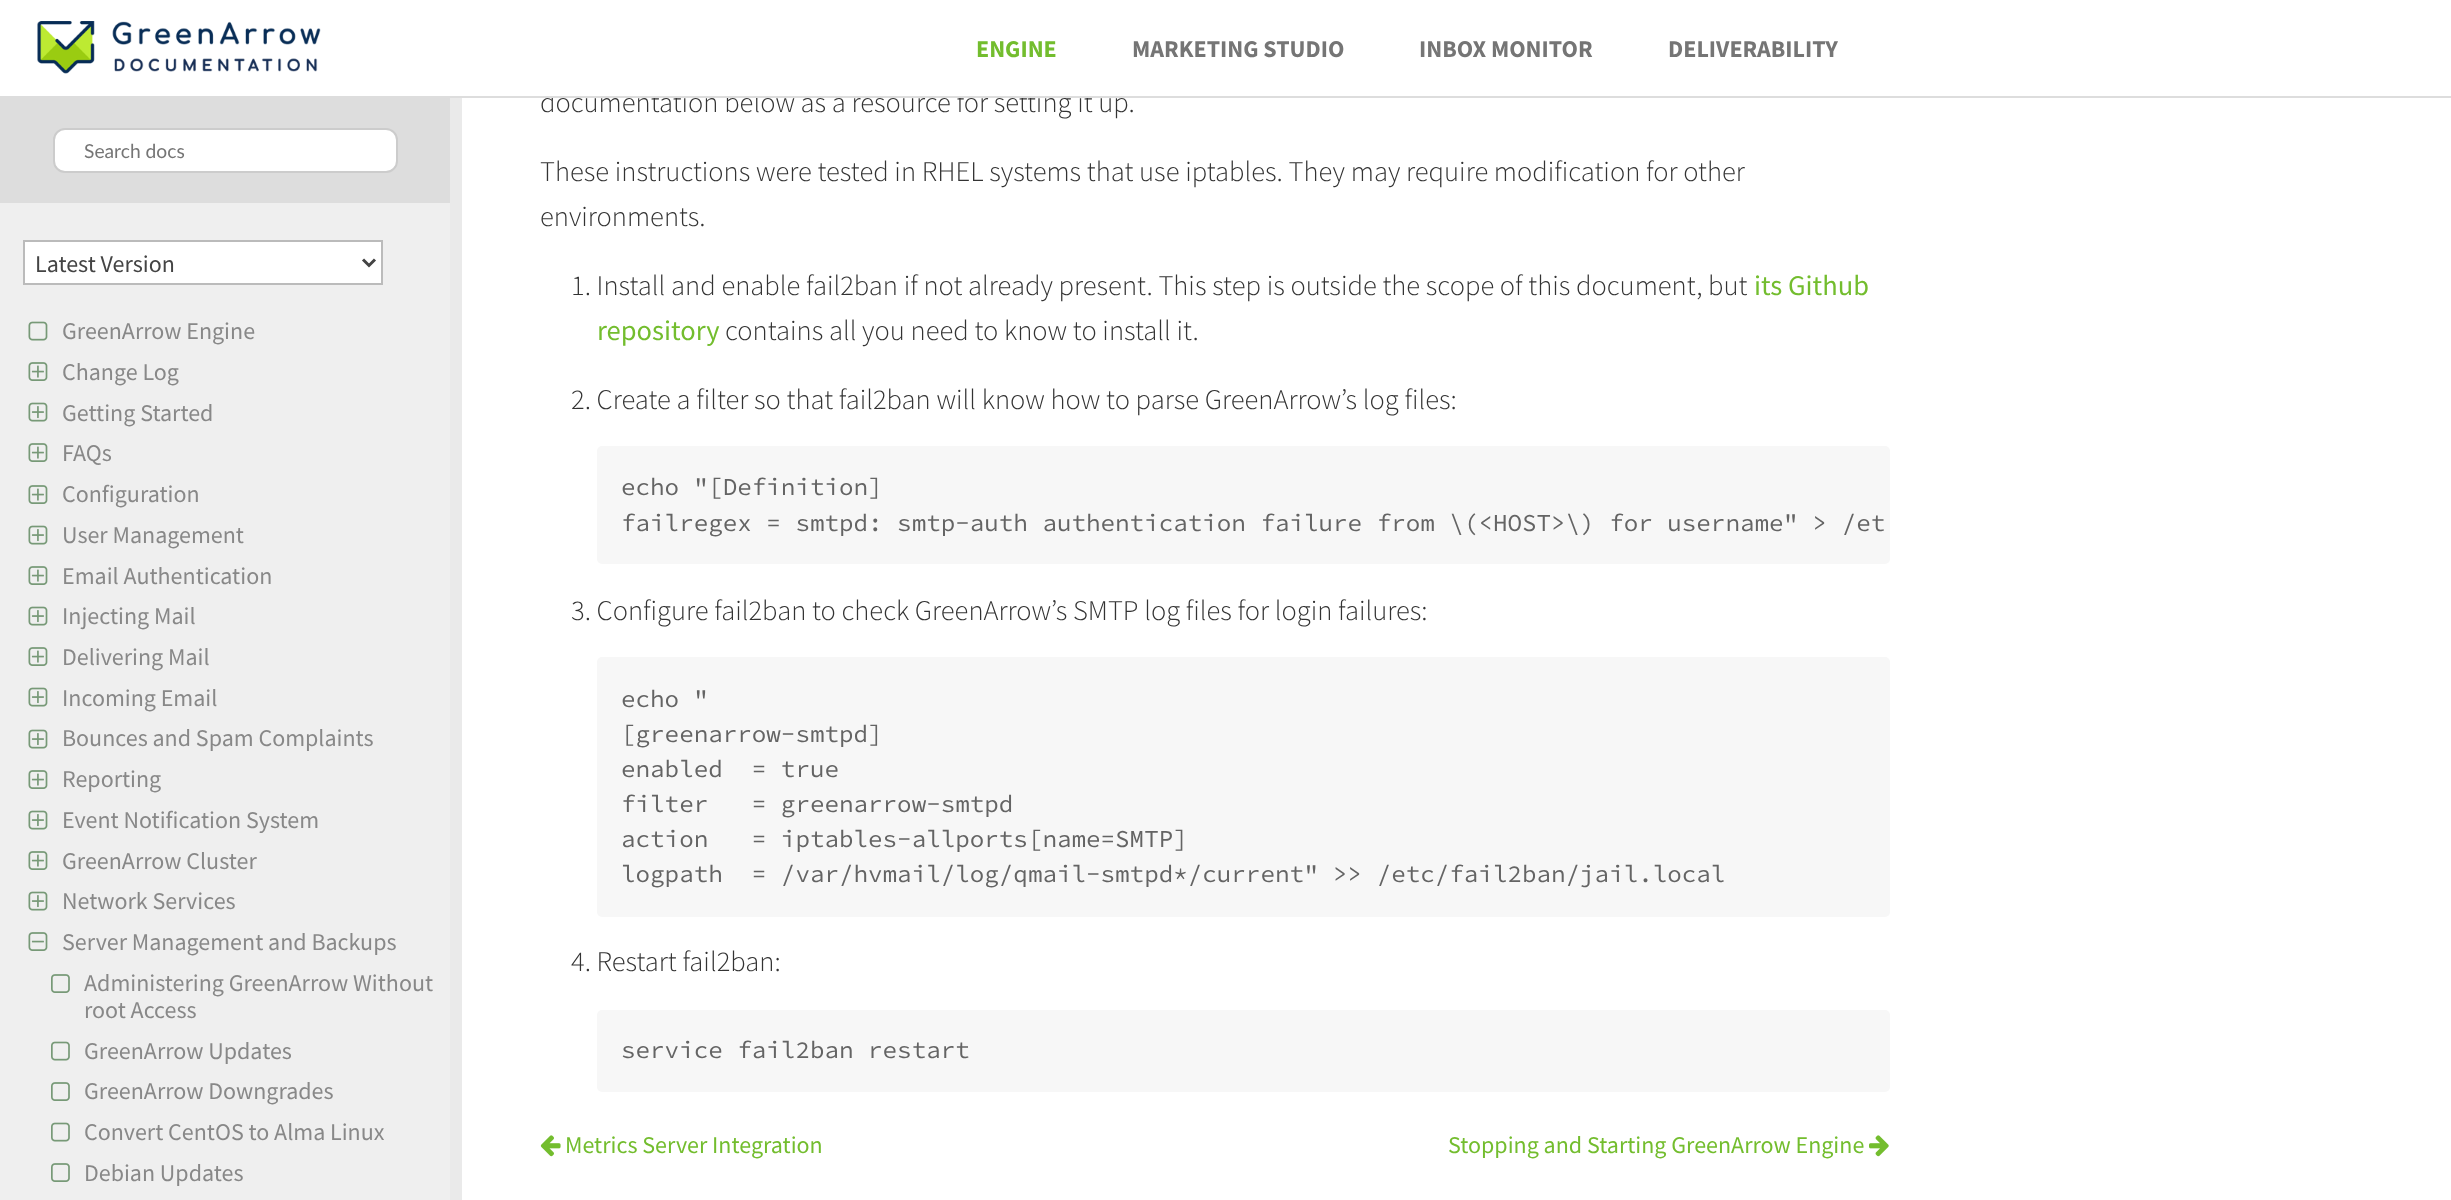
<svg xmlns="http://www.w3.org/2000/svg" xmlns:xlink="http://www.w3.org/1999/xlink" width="2451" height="1200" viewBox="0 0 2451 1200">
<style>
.cls-1{font:bold 24px Source Sans Pro;fill:#73bd2e}
.cls-2{font:bold 24px Source Sans Pro;fill:#757575}
.cls-3{font:19.25px Lato;fill:#757575}
.cls-4{font:24px Source Sans Pro;fill:#444444}
.cls-5{font:24px Source Sans Pro;fill:#888888}
.cls-6{font:300 28.5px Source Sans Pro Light;fill:#333333}
.cls-7{font:28.5px Source Sans Pro;fill:#73bd2e}
.cls-8{font:24.22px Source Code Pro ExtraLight;fill:#646464}
.cls-9{font:24px Source Sans Pro;fill:#73bd2e}
</style>
<rect width="100%" height="100%" fill="#ffffff"/>
<image xlink:href="image0.png" x="37" y="21" width="284" height="53"/>
<rect fill="#efefef" x="0" y="203" width="450" height="997"/>
<rect fill="#dddddd" x="0" y="98" width="450" height="105"/>
<rect fill="#ffffff" stroke="#cccccc" stroke-width="2" x="54" y="129" width="343" height="43" rx="11"/>
<rect fill="#ffffff" stroke="#bbbbbb" stroke-width="2" x="24" y="241" width="358" height="43"/>
<path fill="none" stroke="#444444" stroke-width="3" d="M363 259.5L369 265.5L375 259.5"/>
<image xlink:href="image1.png" x="28" y="321" width="20" height="20"/>
<image xlink:href="image2.png" x="28" y="362" width="20" height="19"/>
<image xlink:href="image3.png" x="28" y="402" width="20" height="20"/>
<image xlink:href="image2.png" x="28" y="443" width="20" height="19"/>
<image xlink:href="image2.png" x="28" y="485" width="20" height="19"/>
<image xlink:href="image3.png" x="28" y="525" width="20" height="20"/>
<image xlink:href="image2.png" x="28" y="566" width="20" height="19"/>
<image xlink:href="image3.png" x="28" y="606" width="20" height="20"/>
<image xlink:href="image2.png" x="28" y="647" width="20" height="19"/>
<image xlink:href="image3.png" x="28" y="687" width="20" height="20"/>
<image xlink:href="image3.png" x="28" y="729" width="20" height="20"/>
<image xlink:href="image2.png" x="28" y="770" width="20" height="19"/>
<image xlink:href="image3.png" x="28" y="810" width="20" height="20"/>
<image xlink:href="image2.png" x="28" y="851" width="20" height="19"/>
<image xlink:href="image3.png" x="28" y="891" width="20" height="20"/>
<image xlink:href="image4.png" x="28" y="932" width="20" height="19"/>
<image xlink:href="image5.png" x="51" y="974" width="19" height="19"/>
<image xlink:href="image6.png" x="51" y="1041" width="19" height="20"/>
<image xlink:href="image5.png" x="51" y="1082" width="19" height="19"/>
<image xlink:href="image6.png" x="51" y="1122" width="19" height="20"/>
<image xlink:href="image5.png" x="51" y="1163" width="19" height="19"/>
<rect fill="#eaeaea" x="450" y="98" width="12" height="1102"/>
<rect fill="#f7f7f7" x="597" y="446" width="1293" height="118" rx="5"/>
<rect fill="#f7f7f7" x="597" y="657" width="1293" height="260" rx="5"/>
<rect fill="#f7f7f7" x="597" y="1010" width="1293" height="82" rx="5"/>
<image xlink:href="image7.png" x="540" y="1135" width="21" height="22"/>
<image xlink:href="image8.png" x="1869" y="1135" width="20" height="22"/>
<text class="cls-1" x="976" y="57">ENGINE</text>
<text class="cls-2" x="1132" y="57">MARKETING STUDIO</text>
<text class="cls-2" x="1419" y="57">INBOX MONITOR</text>
<text class="cls-2" x="1668" y="57">DELIVERABILITY</text>
<text class="cls-3" x="84" y="158">Search docs</text>
<text class="cls-4" x="35" y="272">Latest Version</text>
<text class="cls-5"><tspan x="62" y="339">GreenArrow Engine</tspan><tspan x="62" y="380">Change Log</tspan><tspan x="62" y="421">Getting Started</tspan><tspan x="62" y="461">FAQs</tspan><tspan x="62" y="502">Configuration</tspan><tspan x="62" y="543">User Management</tspan><tspan x="62" y="584">Email Authentication</tspan><tspan x="62" y="624">Injecting Mail</tspan><tspan x="62" y="665">Delivering Mail</tspan><tspan x="62" y="706">Incoming Email</tspan><tspan x="62" y="746">Bounces and Spam Complaints</tspan><tspan x="62" y="787">Reporting</tspan><tspan x="62" y="828">Event Notification System</tspan><tspan x="62" y="869">GreenArrow Cluster</tspan><tspan x="62" y="909">Network Services</tspan><tspan x="62" y="950">Server Management and Backups</tspan></text>
<text class="cls-5"><tspan x="84" y="991">Administering GreenArrow Without</tspan><tspan x="84" y="1018">root Access</tspan><tspan x="84" y="1059">GreenArrow Updates</tspan><tspan x="84" y="1099">GreenArrow Downgrades</tspan><tspan x="84" y="1140">Convert CentOS to Alma Linux</tspan><tspan x="84" y="1181">Debian Updates</tspan></text>
<text class="cls-6" x="540" y="112">documentation below as a resource for setting it up.</text>
<rect fill="#dddddd" x="0" y="96" width="2451" height="2"/>
<rect fill="#ffffff" x="551" y="91" width="537" height="5"/>
<text class="cls-6"><tspan x="540" y="181">These instructions were tested in RHEL systems that use iptables. They may require modification for other</tspan><tspan x="540" y="226">environments.</tspan></text>
<text class="cls-6" x="571" y="295">1. Install and enable fail2ban if not already present. This step is outside the scope of this document, but</text>
<text class="cls-7" x="1754" y="295">its Github</text>
<text class="cls-7" x="597" y="340">repository</text>
<text class="cls-6" x="725" y="340">contains all you need to know to install it.</text>
<text class="cls-6" x="571" y="409">2. Create a filter so that fail2ban will know how to parse GreenArrow’s log files:</text>
<text class="cls-8"><tspan x="621" y="495">echo "[Definition]</tspan><tspan x="621" y="531">failregex = smtpd: smtp-auth authentication failure from \(&lt;HOST&gt;\) for username" &gt; /et</tspan></text>
<text class="cls-6" x="571" y="620">3. Configure fail2ban to check GreenArrow’s SMTP log files for login failures:</text>
<text class="cls-8" xml:space="preserve"><tspan x="621" y="707">echo "</tspan><tspan x="621" y="742">[greenarrow-smtpd]</tspan><tspan x="621" y="777">enabled  = true</tspan><tspan x="621" y="812">filter   = greenarrow-smtpd</tspan><tspan x="621" y="847">action   = iptables-allports[name=SMTP]</tspan><tspan x="621" y="882">logpath  = /var/hvmail/log/qmail-smtpd*/current" &gt;&gt; /etc/fail2ban/jail.local</tspan></text>
<text class="cls-6" x="571" y="971">4. Restart fail2ban:</text>
<text class="cls-8" x="621" y="1058">service fail2ban restart</text>
<text class="cls-9" x="565" y="1153">Metrics Server Integration</text>
<text class="cls-9" x="1448" y="1153">Stopping and Starting GreenArrow Engine</text>
</svg>
